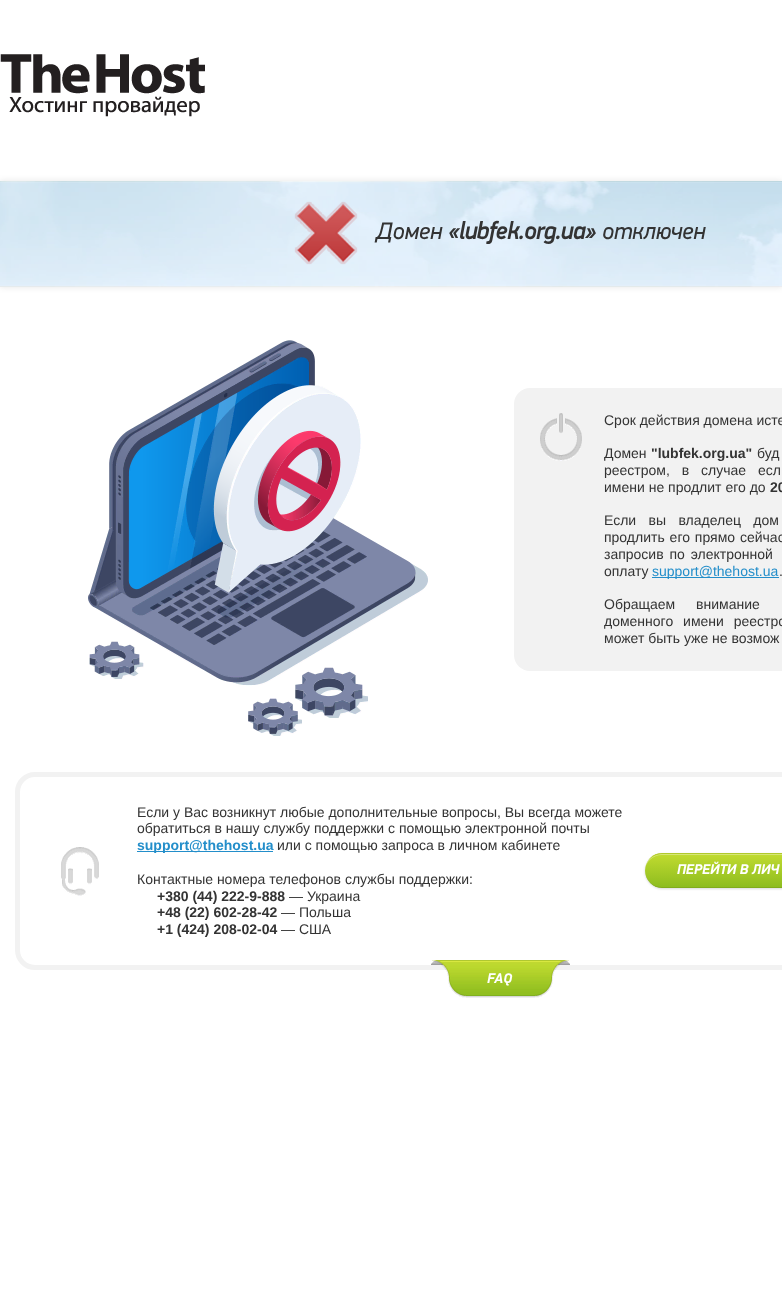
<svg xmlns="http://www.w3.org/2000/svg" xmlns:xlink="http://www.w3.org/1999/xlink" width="782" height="1310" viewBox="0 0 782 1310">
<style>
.cls-1{font:italic 24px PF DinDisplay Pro;fill:#333333}
.cls-2{font:italic bold 24px PF DinDisplay Pro;fill:#333333}
.cls-3{font:14px Liberation Sans;fill:#333333}
.cls-4{font:bold 14px Liberation Sans;fill:#333333}
.cls-5{font:14px Liberation Sans;fill:#238eca}
.cls-6{font:bold 14px Liberation Sans;fill:#238eca}
.cls-7{font:italic bold 14px 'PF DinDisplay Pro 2';fill:#ffffff}
</style>
<defs>
<clipPath id="clip1"><rect x="645" y="853" width="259" height="35" rx="17.5"/></clipPath>
<linearGradient id="g1" gradientUnits="userSpaceOnUse" x1="775" y1="854" x2="775" y2="887"><stop offset="0" stop-color="#c1db30"/><stop offset="1" stop-color="#8ebd1f"/></linearGradient>
</defs>
<rect width="100%" height="100%" fill="#ffffff"/>
<image xlink:href="image0.png" x="0" y="54" width="205" height="63"/>
<rect fill="#000000" fill-opacity="0.1" filter="blur(3px)" x="0" y="181" width="782" height="106"/>
<image xlink:href="image1.png" x="0" y="181" width="782" height="106"/>
<rect fill="#000000" fill-opacity="0.04" x="0" y="286" width="782" height="1"/>
<rect fill="#ffffff" fill-opacity="0.1" x="0" y="182" width="782" height="1"/>
<rect fill="#ffffff" fill-opacity="0.1" x="0" y="285" width="782" height="1"/>
<image xlink:href="image2.png" x="294" y="201" width="64" height="64"/>
<image xlink:href="image3.png" x="88" y="340" width="340" height="396"/>
<rect fill="#f2f2f2" x="514" y="388" width="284" height="283" rx="16"/>
<image xlink:href="image4.png" x="540" y="413" width="42" height="48"/>
<rect fill="#238eca" x="652" y="577" width="127" height="1"/>
<rect fill="none" stroke="#f2f2f2" stroke-width="5" x="17.5" y="774.5" width="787" height="193" rx="17.5"/>
<image xlink:href="image5.png" x="61" y="847" width="38" height="49"/>
<rect fill="#238eca" x="137" y="851" width="136" height="1"/>
<rect fill="#000000" fill-opacity="0.15" filter="blur(1px)" x="645" y="854" width="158" height="35" rx="17.5"/>
<g clip-path="url(#clip1)">
<rect fill="url(#g1)" x="645" y="854" width="137" height="33"/>
</g>
<path fill="#ffffff" fill-opacity="0.35" d="M662 855H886C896 855 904 862 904 871C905 845 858 854 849 854H700C691 854 644 845 645 871C645 862 653 855 662 855Z"/>
<path fill="#b1c92c" d="M662 853C653 853 646 860 645 869C646 860 653 854 662 854H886C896 854 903 860 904 869C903 860 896 853 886 853Z"/>
<path fill="#81ac1c" d="M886 888C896 888 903 881 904 871C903 881 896 887 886 887H662C653 887 646 881 645 871C646 881 653 888 662 888Z"/>
<image xlink:href="image6.png" x="431" y="960" width="139" height="38"/>
<text class="cls-1" x="376" y="239">Домен</text>
<text class="cls-2" x="448" y="239">«lubfek.org.ua»</text>
<text class="cls-1" x="602" y="239">отключен</text>
<text class="cls-3" x="604" y="425">Срок действия домена исте</text>
<text class="cls-3" x="604" y="458">Домен</text>
<text class="cls-4" x="651" y="458">"lubfek.org.ua"</text>
<text class="cls-3" x="757" y="458" word-spacing="1">буд</text>
<text class="cls-3"><tspan x="604" y="475" word-spacing="8">реестром, в случае есл</tspan><tspan x="604" y="492">имени не продлит его до</tspan></text>
<text class="cls-4" x="770" y="492">20</text>
<text class="cls-3"><tspan x="604" y="525" word-spacing="8.5">Если вы владелец дом</tspan><tspan x="604" y="542" word-spacing="1">продлить его прямо сейчас</tspan><tspan x="604" y="559" word-spacing="2">запросив по электронной</tspan><tspan x="604" y="576">оплату</tspan></text>
<text class="cls-5" x="652" y="576">support@thehost.ua</text>
<text class="cls-3" x="779" y="576">.</text>
<text class="cls-3"><tspan x="604" y="609" word-spacing="17">Обращаем внимание</tspan><tspan x="604" y="626" word-spacing="6">доменного имени реестро</tspan><tspan x="604" y="643">может быть уже не возмож</tspan></text>
<text class="cls-3"><tspan x="137" y="817">Если у Вас возникнут любые дополнительные вопросы, Вы всегда можете</tspan><tspan x="137" y="833">обратиться в нашу службу поддержки с помощью электронной почты</tspan></text>
<text class="cls-6" x="137" y="850">support@thehost.ua</text>
<text class="cls-3" x="277" y="850">или с помощью запроса в личном кабинете</text>
<text class="cls-3" x="137" y="884">Контактные номера телефонов службы поддержки:</text>
<text class="cls-4" x="157" y="901">+380 (44) 222-9-888</text>
<text class="cls-3" x="289" y="901">— Украина</text>
<text class="cls-4" x="157" y="917">+48 (22) 602-28-42</text>
<text class="cls-3" x="281" y="917">— Польша</text>
<text class="cls-4" x="157" y="934">+1 (424) 208-02-04</text>
<text class="cls-3" x="281" y="934">— США</text>
<text class="cls-7" x="677" y="874">ПЕРЕЙТИ В ЛИЧ</text>
<text class="cls-7" x="487" y="983">FAQ</text>
</svg>
